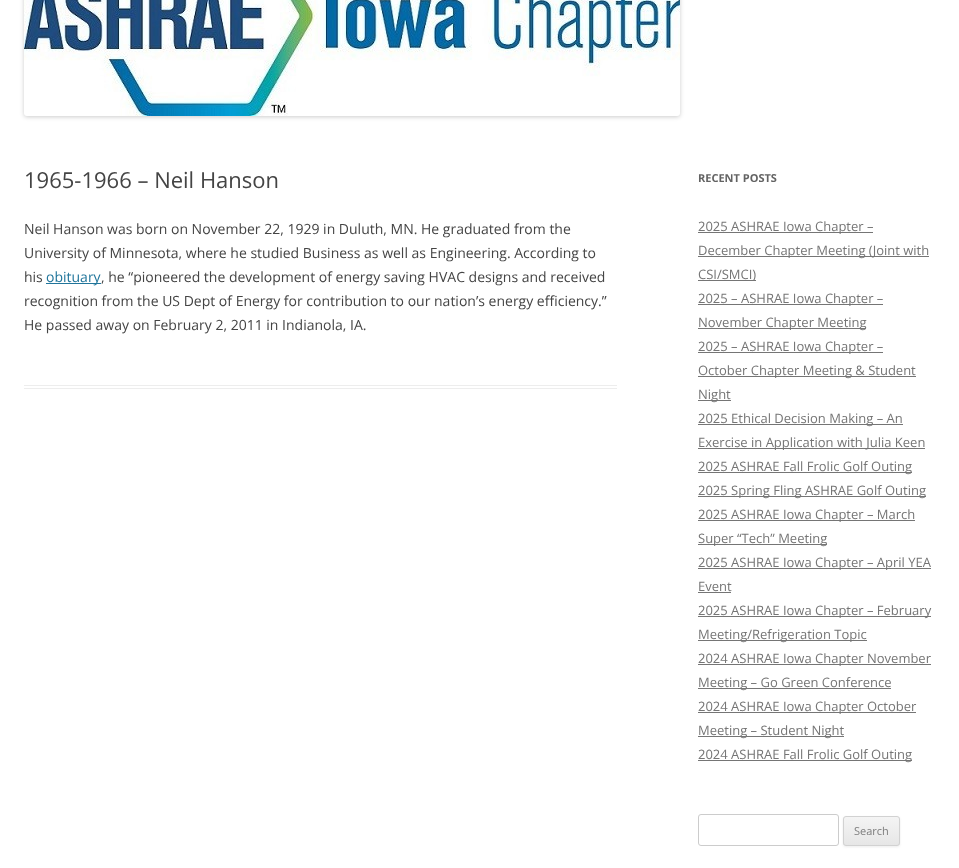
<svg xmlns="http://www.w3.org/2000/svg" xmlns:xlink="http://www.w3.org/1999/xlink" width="959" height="868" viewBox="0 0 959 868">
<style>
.cls-1{font:22px Open Sans;fill:#444444}
.cls-2{font:14px Open Sans;fill:#444444}
.cls-3{font:14px Open Sans;fill:#21759b}
.cls-4{font:bold 11px Open Sans;fill:#636363}
.cls-5{font:13px Open Sans;fill:#757575}
.cls-6{font:11px Open Sans;fill:#7c7c7c}
</style>
<defs>
<clipPath id="clip1"><rect x="843" y="816" width="57" height="30" rx="3"/></clipPath>
<linearGradient id="g1" gradientUnits="userSpaceOnUse" x1="872" y1="817" x2="872" y2="845"><stop offset="0" stop-color="#f4f4f4"/><stop offset="1" stop-color="#e6e6e6"/></linearGradient>
</defs>
<rect width="100%" height="100%" fill="#ffffff"/>
<rect fill="#000000" fill-opacity="0.2" filter="blur(2px)" x="24" y="-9" width="656" height="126" rx="3"/>
<image xlink:href="image0.png" x="24" y="0" width="656" height="116"/>
<rect fill="#ededed" x="24" y="385" width="593" height="1"/>
<rect fill="#ededed" x="24" y="388" width="593" height="1"/>
<rect fill="#21759b" x="46" y="283" width="55" height="1"/>
<rect fill="#757575" x="698" y="232" width="175" height="1"/>
<rect fill="#757575" x="698" y="256" width="231" height="1"/>
<rect fill="#757575" x="698" y="280" width="58" height="1"/>
<rect fill="#757575" x="698" y="304" width="185" height="1"/>
<rect fill="#757575" x="698" y="328" width="168" height="1"/>
<rect fill="#757575" x="698" y="352" width="185" height="1"/>
<rect fill="#757575" x="698" y="376" width="218" height="1"/>
<rect fill="#757575" x="698" y="400" width="33" height="1"/>
<rect fill="#757575" x="698" y="424" width="205" height="1"/>
<rect fill="#757575" x="698" y="448" width="227" height="1"/>
<rect fill="#757575" x="698" y="472" width="214" height="1"/>
<rect fill="#757575" x="698" y="496" width="228" height="1"/>
<rect fill="#757575" x="698" y="520" width="217" height="1"/>
<rect fill="#757575" x="698" y="544" width="129" height="1"/>
<rect fill="#757575" x="698" y="568" width="233" height="1"/>
<rect fill="#757575" x="698" y="592" width="33" height="1"/>
<rect fill="#757575" x="698" y="616" width="233" height="1"/>
<rect fill="#757575" x="698" y="640" width="169" height="1"/>
<rect fill="#757575" x="698" y="664" width="233" height="1"/>
<rect fill="#757575" x="698" y="688" width="193" height="1"/>
<rect fill="#757575" x="698" y="712" width="218" height="1"/>
<rect fill="#757575" x="698" y="736" width="146" height="1"/>
<rect fill="#757575" x="698" y="760" width="214" height="1"/>
<rect fill="none" stroke="#cccccc" x="698.5" y="814.5" width="140" height="31" rx="2.5"/>
<rect fill="#404040" fill-opacity="0.1" filter="blur(1px)" x="843" y="817" width="57" height="30" rx="3"/>
<g clip-path="url(#clip1)">
<rect fill="url(#g1)" x="843" y="817" width="57" height="28"/>
</g>
<rect fill="none" stroke="#d2d2d2" x="843.5" y="816.5" width="56" height="29" rx="2.5"/>
<text class="cls-1" x="24" y="188">1965-1966 – Neil Hanson</text>
<text class="cls-2"><tspan x="24" y="234">Neil Hanson was born on November 22, 1929 in Duluth, MN. He graduated from the</tspan><tspan x="24" y="258">University of Minnesota, where he studied Business as well as Engineering. According to</tspan><tspan x="24" y="282">his</tspan></text>
<text class="cls-3" x="46" y="282">obituary</text>
<text class="cls-2" x="101" y="282">, he “pioneered the development of energy saving HVAC designs and received</text>
<text class="cls-2"><tspan x="24" y="306">recognition from the US Dept of Energy for contribution to our nation’s energy efficiency.”</tspan><tspan x="24" y="330">He passed away on February 2, 2011 in Indianola, IA.</tspan></text>
<text class="cls-4" x="698" y="182">RECENT POSTS</text>
<text class="cls-5"><tspan x="698" y="231">2025 ASHRAE Iowa Chapter –</tspan><tspan x="698" y="255">December Chapter Meeting (Joint with</tspan><tspan x="698" y="279">CSI/SMCI)</tspan><tspan x="698" y="303">2025 – ASHRAE Iowa Chapter –</tspan><tspan x="698" y="327">November Chapter Meeting</tspan><tspan x="698" y="351">2025 – ASHRAE Iowa Chapter –</tspan><tspan x="698" y="375">October Chapter Meeting &amp; Student</tspan><tspan x="698" y="399">Night</tspan><tspan x="698" y="423">2025 Ethical Decision Making – An</tspan><tspan x="698" y="447">Exercise in Application with Julia Keen</tspan><tspan x="698" y="471">2025 ASHRAE Fall Frolic Golf Outing</tspan><tspan x="698" y="495">2025 Spring Fling ASHRAE Golf Outing</tspan><tspan x="698" y="519">2025 ASHRAE Iowa Chapter – March</tspan><tspan x="698" y="543">Super “Tech” Meeting</tspan><tspan x="698" y="567">2025 ASHRAE Iowa Chapter – April YEA</tspan><tspan x="698" y="591">Event</tspan><tspan x="698" y="615">2025 ASHRAE Iowa Chapter – February</tspan><tspan x="698" y="639">Meeting/Refrigeration Topic</tspan><tspan x="698" y="663">2024 ASHRAE Iowa Chapter November</tspan><tspan x="698" y="687">Meeting – Go Green Conference</tspan><tspan x="698" y="711">2024 ASHRAE Iowa Chapter October</tspan><tspan x="698" y="735">Meeting – Student Night</tspan><tspan x="698" y="759">2024 ASHRAE Fall Frolic Golf Outing</tspan></text>
<text class="cls-6" x="854" y="835">Search</text>
</svg>
